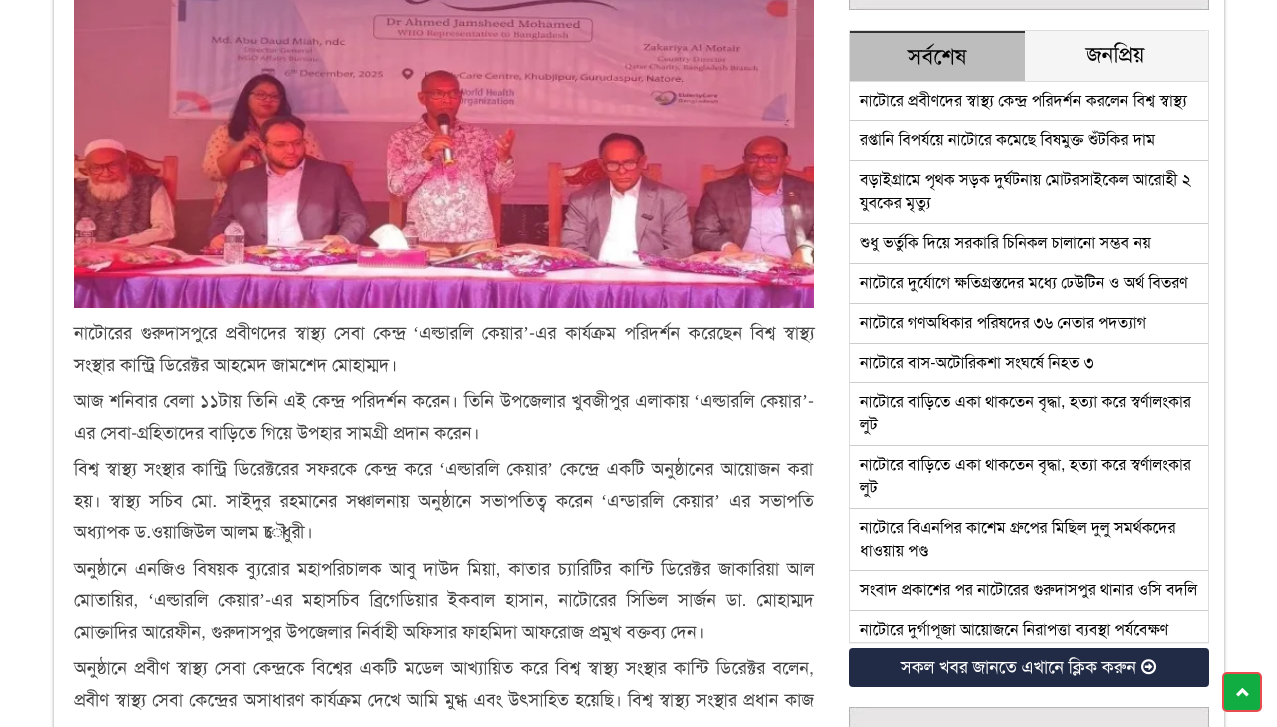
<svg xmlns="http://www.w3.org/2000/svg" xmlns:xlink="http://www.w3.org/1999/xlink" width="1277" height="727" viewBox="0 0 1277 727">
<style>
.cls-1{font:18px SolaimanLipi;fill:#444444}
.cls-2{font:18px Liberation Serif;fill:#444444}
.cls-3{font:22px SolaimanLipi;fill:#000000}
.cls-4{font:16px SolaimanLipi;fill:#000000}
.cls-5{font:17.6px SolaimanLipi;fill:#ffffff}
</style>
<defs>
<clipPath id="clip1"><path d="M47 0H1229V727H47ZM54-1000H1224V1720H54Z" clip-rule="evenodd"/></clipPath>
<clipPath id="clip2"><path d="M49 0H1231V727H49ZM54-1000H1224V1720H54Z" clip-rule="evenodd"/></clipPath>
<clipPath id="clip3"><rect x="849" y="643" width="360" height="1"/></clipPath>
</defs>
<rect width="100%" height="100%" fill="#ffffff"/>
<g clip-path="url(#clip1)">
<rect fill="#000000" fill-opacity="0.2" filter="blur(1.5px)" x="53" y="-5" width="1170" height="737"/>
</g>
<g clip-path="url(#clip2)">
<rect fill="#000000" fill-opacity="0.2" filter="blur(1.5px)" x="55" y="-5" width="1170" height="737"/>
</g>
<image xlink:href="image0.png" x="74" y="0" width="740" height="308"/>
<image xlink:href="image1.png" x="849" y="0" width="360" height="10"/>
<g clip-path="url(#clip3)">
<rect fill="#000000" fill-opacity="0.05" filter="blur(0.5px)" x="849" y="31" width="360" height="613"/>
</g>
<rect fill="none" stroke="#dddddd" x="849.5" y="30.5" width="359" height="612"/>
<path fill="#f5f5f5" d="M853 31H1205C1206.5 31 1208 32.5 1208 34V82H850V34C850 32.5 851.5 31 853 31Z"/>
<rect fill="#dddddd" x="850" y="81" width="358" height="1"/>
<rect fill="#bdbdbd" x="850" y="33" width="175" height="48"/>
<rect fill="#333333" x="850" y="31" width="175" height="2"/>
<rect fill="#cccccc" x="850" y="120" width="358" height="1"/>
<rect fill="#cccccc" x="850" y="160" width="358" height="1"/>
<rect fill="#cccccc" x="850" y="223" width="358" height="1"/>
<rect fill="#cccccc" x="850" y="263" width="358" height="1"/>
<rect fill="#cccccc" x="850" y="303" width="358" height="1"/>
<rect fill="#cccccc" x="850" y="343" width="358" height="1"/>
<rect fill="#cccccc" x="850" y="382" width="358" height="1"/>
<rect fill="#cccccc" x="850" y="445" width="358" height="1"/>
<rect fill="#cccccc" x="850" y="508" width="358" height="1"/>
<rect fill="#cccccc" x="850" y="570" width="358" height="1"/>
<rect fill="#cccccc" x="850" y="610" width="358" height="1"/>
<rect fill="#222b46" x="849" y="648" width="360" height="39" rx="4"/>
<image xlink:href="image2.png" x="1141" y="659" width="16" height="16"/>
<image xlink:href="image3.png" x="849" y="707" width="360" height="20"/>
<rect fill="#12ad42" stroke="#e74c4f" stroke-width="2" x="1223" y="673" width="38" height="38" rx="4"/>
<image xlink:href="image4.png" x="1236" y="687" width="13" height="10"/>
<text class="cls-1" x="74" y="339" word-spacing="3.5">নাটোরের গুরুদাসপুরে প্রবীণদের স্বাস্থ্য সেবা কেন্দ্র</text>
<text class="cls-2" x="413" y="339">‘</text>
<text class="cls-1" x="419" y="339" word-spacing="3.5">এল্ডারলি কেয়ার</text>
<text class="cls-2" x="523" y="339">’</text>
<text class="cls-1" x="529" y="339" word-spacing="3.5">-এর কার্যক্রম পরিদর্শন করেছেন বিশ্ব স্বাস্থ্য</text>
<text class="cls-1" x="74" y="371">সংস্থার কান্ট্রি ডিরেক্টর আহমেদ জামশেদ মোহাম্মদ।</text>
<text class="cls-1" x="74" y="407" word-spacing="1">আজ শনিবার বেলা ১১টায় তিনি এই কেন্দ্র পরিদর্শন করেন। তিনি উপজেলার খুবজীপুর এলাকায়</text>
<text class="cls-2" x="694" y="407">‘</text>
<text class="cls-1" x="700" y="407" word-spacing="1">এল্ডারলি কেয়ার</text>
<text class="cls-2" x="802" y="407">’</text>
<text class="cls-1" x="808" y="407">-</text>
<text class="cls-1" x="74" y="439">এর সেবা-গ্রহিতাদের বাড়িতে গিয়ে উপহার সামগ্রী প্রদান করেন।</text>
<text class="cls-1" x="74" y="475" word-spacing="2.25">বিশ্ব স্বাস্থ্য সংস্থার কান্ট্রি ডিরেক্টরের সফরকে কেন্দ্র করে</text>
<text class="cls-2" x="439" y="475">‘</text>
<text class="cls-1" x="445" y="475" word-spacing="2.25">এল্ডারলি কেয়ার</text>
<text class="cls-2" x="547" y="475">’</text>
<text class="cls-1" x="560" y="475" word-spacing="2.25">কেন্দ্রে একটি অনুষ্ঠানের আয়োজন করা</text>
<text class="cls-1" x="74" y="507" word-spacing="4">হয়। স্বাস্থ্য সচিব মো. সাইদুর রহমানের সঞ্চালনায় অনুষ্ঠানে সভাপতিত্ব করেন</text>
<text class="cls-2" x="601" y="507">‘</text>
<text class="cls-1" x="607" y="507" word-spacing="4">এন্ডারলি কেয়ার</text>
<text class="cls-2" x="714" y="507">’</text>
<text class="cls-1" x="729" y="507" word-spacing="4">এর সভাপতি</text>
<text class="cls-1" x="74" y="538">অধ্যাপক ড.ওয়াজিউল আলম চৌধুরী।</text>
<text class="cls-1"><tspan x="74" y="575" word-spacing="2.75">অনুষ্ঠানে এনজিও বিষয়ক ব্যুরোর মহাপরিচালক আবু দাউদ মিয়া, কাতার চ্যারিটির কান্টি ডিরেক্টর জাকারিয়া আল</tspan><tspan x="74" y="606">মোতায়ির,</tspan></text>
<text class="cls-2" x="148" y="606">‘</text>
<text class="cls-1" x="154" y="606" word-spacing="5">এল্ডারলি কেয়ার</text>
<text class="cls-2" x="259" y="606">’</text>
<text class="cls-1" x="265" y="606" word-spacing="5">-এর মহাসচিব ব্রিগেডিয়ার ইকবাল হাসান, নাটোরের সিভিল সার্জন ডা. মোহাম্মদ</text>
<text class="cls-1" x="74" y="638">মোক্তাদির আরেফীন, গুরুদাসপুর উপজেলার নির্বাহী অফিসার ফাহমিদা আফরোজ প্রমুখ বক্তব্য দেন।</text>
<text class="cls-1"><tspan x="74" y="674" word-spacing="2.4">অনুষ্ঠানে প্রবীণ স্বাস্থ্য সেবা কেন্দ্রকে বিশ্বের একটি মডেল আখ্যায়িত করে বিশ্ব স্বাস্থ্য সংস্থার কান্টি ডিরেক্টর বলেন,</tspan><tspan x="74" y="706" word-spacing="1.25">প্রবীণ স্বাস্থ্য সেবা কেন্দ্রের অসাধারণ কার্যক্রম দেখে আমি মুগ্ধ এবং উৎসাহিত হয়েছি। বিশ্ব স্বাস্থ্য সংস্থার প্রধান কাজ</tspan></text>
<text class="cls-3" x="908" y="64">সর্বশেষ</text>
<text class="cls-3" x="1086" y="62">জনপ্রিয়</text>
<text class="cls-4" x="860" y="106">নাটোরে প্রবীণদের স্বাস্থ্য কেন্দ্র পরিদর্শন করলেন বিশ্ব স্বাস্থ্য</text>
<text class="cls-4" x="860" y="145">রপ্তানি বিপর্যয়ে নাটোরে কমেছে বিষমুক্ত শুঁটকির দাম</text>
<text class="cls-4"><tspan x="860" y="185">বড়াইগ্রামে পৃথক সড়ক দুর্ঘটনায় মোটরসাইকেল আরোহী ২</tspan><tspan x="860" y="208">যুবকের মৃত্যু</tspan></text>
<text class="cls-4" x="860" y="248">শুধু ভর্তুকি দিয়ে সরকারি চিনিকল চালানো সম্ভব নয়</text>
<text class="cls-4" x="860" y="288">নাটোরে দুর্যোগে ক্ষতিগ্রস্তদের মধ্যে ঢেউটিন ও অর্থ বিতরণ</text>
<text class="cls-4" x="860" y="328">নাটোরে গণঅধিকার পরিষদের ৩৬ নেতার পদত্যাগ</text>
<text class="cls-4" x="860" y="368">নাটোরে বাস-অটোরিকশা সংঘর্ষে নিহত ৩</text>
<text class="cls-4"><tspan x="860" y="407">নাটোরে বাড়িতে একা থাকতেন বৃদ্ধা, হত্যা করে স্বর্ণালংকার</tspan><tspan x="860" y="430">লুট</tspan></text>
<text class="cls-4"><tspan x="860" y="470">নাটোরে বাড়িতে একা থাকতেন বৃদ্ধা, হত্যা করে স্বর্ণালংকার</tspan><tspan x="860" y="493">লুট</tspan></text>
<text class="cls-4"><tspan x="860" y="533">নাটোরে বিএনপির কাশেম গ্রুপের মিছিল দুলু সমর্থকদের</tspan><tspan x="860" y="556">ধাওয়ায় পণ্ড</tspan></text>
<text class="cls-4" x="860" y="595">সংবাদ প্রকাশের পর নাটোরের গুরুদাসপুর থানার ওসি বদলি</text>
<text class="cls-4" x="860" y="635">নাটোরে দুর্গাপূজা আয়োজনে নিরাপত্তা ব্যবস্থা পর্যবেক্ষণ</text>
<text class="cls-5" x="901" y="673">সকল খবর জানতে এখানে ক্লিক করুন</text>
</svg>
